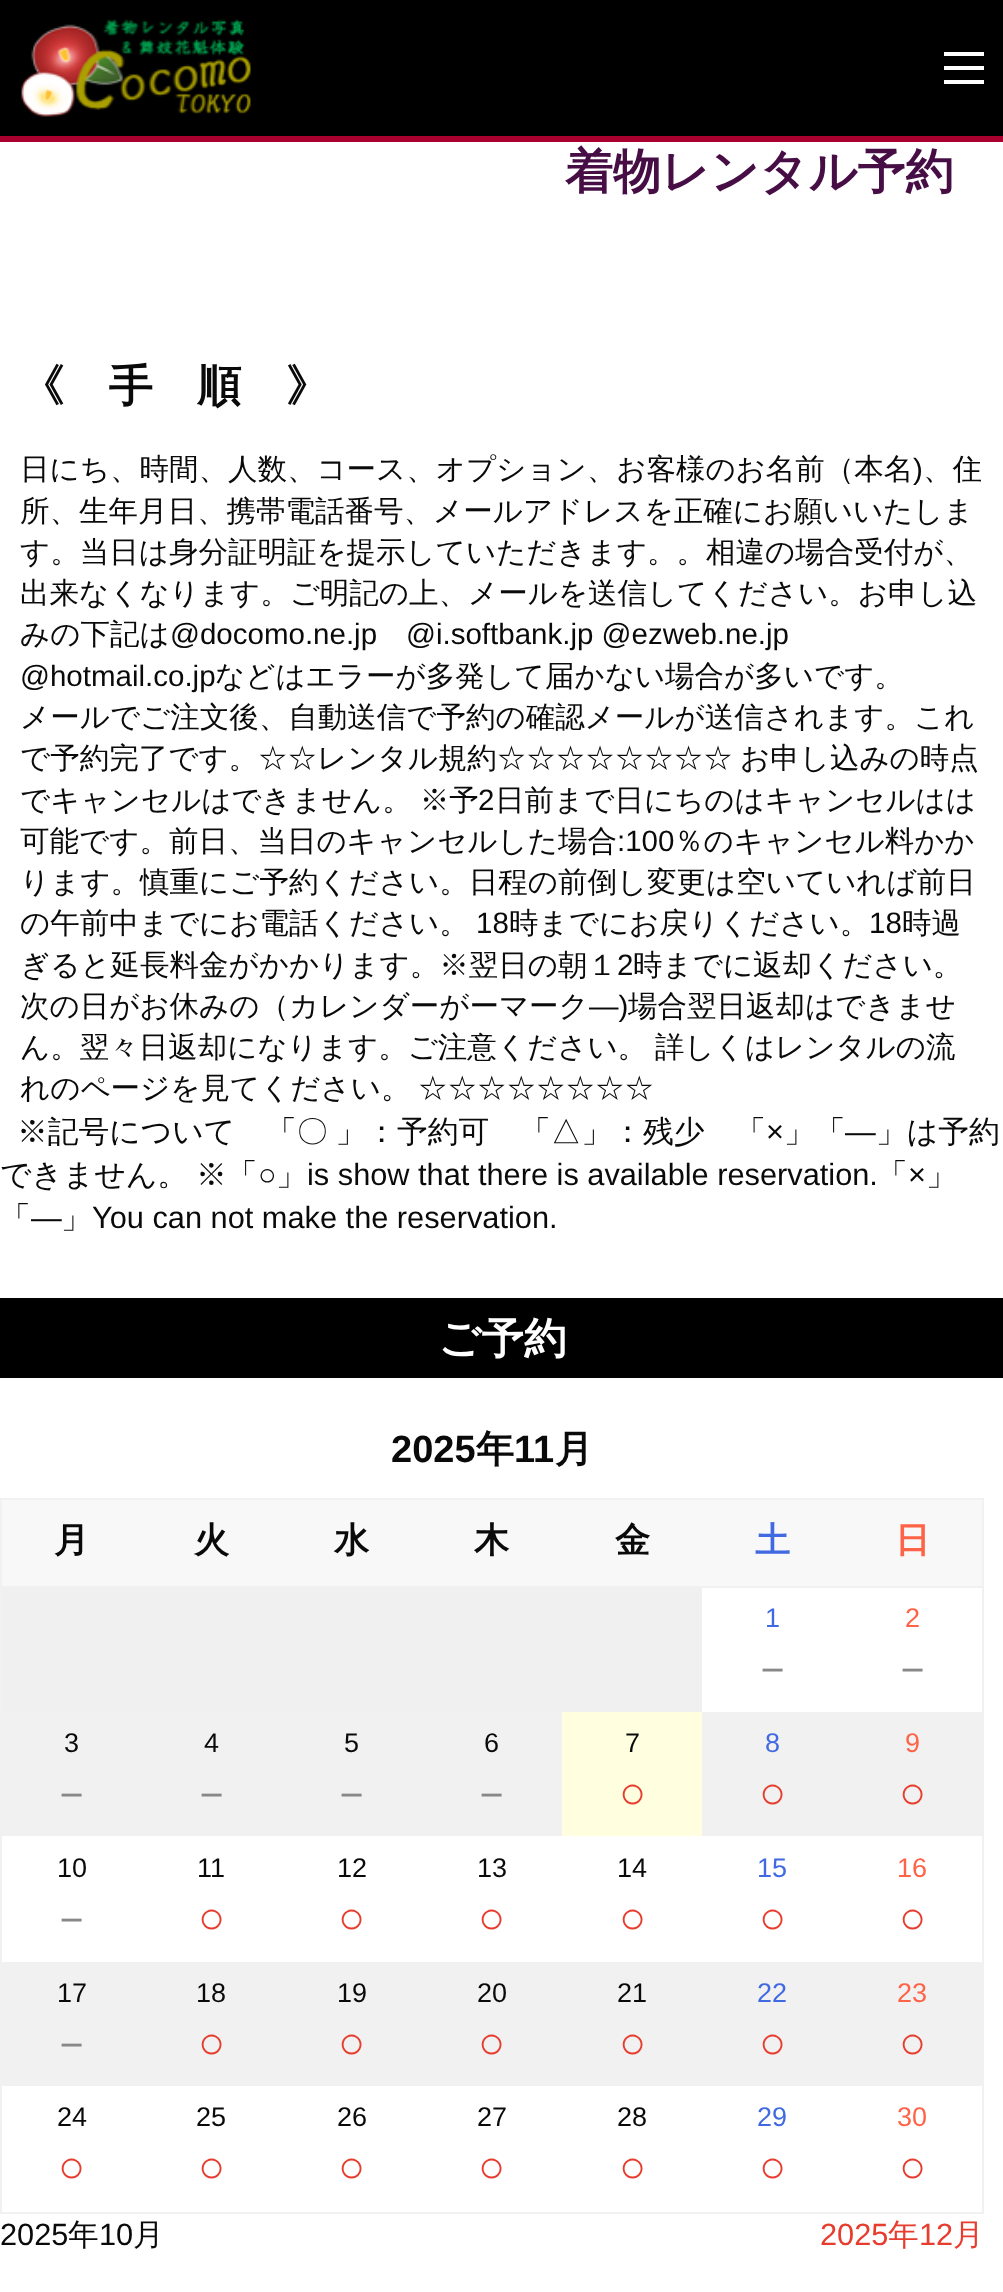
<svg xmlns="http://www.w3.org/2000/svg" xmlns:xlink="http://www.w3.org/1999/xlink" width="1003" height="2292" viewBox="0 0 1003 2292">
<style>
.cls-1{font:bold 48px WenQuanYi Zen Hei;fill:#460e44}
.cls-2{font:bold 44.25px WenQuanYi Zen Hei;fill:#0a0a0a}
.cls-3{font:500 29.5px WenQuanYi Zen Hei;fill:#0a0a0a}
.cls-4{font:29.5px Liberation Sans;fill:#0a0a0a}
.cls-5{font:500 30.75px WenQuanYi Zen Hei;fill:#0a0a0a}
.cls-6{font:30.75px Liberation Sans;fill:#0a0a0a}
.cls-7{font:bold 42.5px WenQuanYi Zen Hei;fill:#ffffff}
.cls-8{font:bold 38px Liberation Sans;fill:#0a0a0a}
.cls-9{font:bold 38px WenQuanYi Zen Hei;fill:#0a0a0a}
.cls-10{font:bold 35px WenQuanYi Zen Hei;fill:#0a0a0a}
.cls-11{font:bold 35px WenQuanYi Zen Hei;fill:#4169e1}
.cls-12{font:bold 35px WenQuanYi Zen Hei;fill:#ff6347}
.cls-13{font:27px Liberation Sans;fill:#4169e1}
.cls-14{font:500 45px WenQuanYi Zen Hei;fill:#888888}
.cls-15{font:27px Liberation Sans;fill:#ff6347}
.cls-16{font:27px Liberation Sans;fill:#0a0a0a}
.cls-17{font:45px Liberation Sans;fill:#e63d2f}
.cls-18{font:30.75px Liberation Sans;fill:#e63d2f}
.cls-19{font:500 30.75px WenQuanYi Zen Hei;fill:#e63d2f}
</style>
<rect width="100%" height="100%" fill="#ffffff"/>
<rect fill="#000000" x="0" y="0" width="1003" height="136"/>
<rect fill="#ab002f" x="0" y="136" width="1003" height="6"/>
<image xlink:href="image0.png" x="21" y="19" width="230" height="99"/>
<rect fill="#fefefe" x="944" y="80" width="40" height="4"/>
<rect fill="#fefefe" x="944" y="66" width="40" height="4"/>
<rect fill="#fefefe" x="944" y="52" width="40" height="4"/>
<rect fill="#000000" x="0" y="1298" width="1003" height="80"/>
<rect fill="#f8f8f8" x="2" y="1500" width="980" height="86"/>
<rect fill="#f1f1f1" x="0" y="1498" width="984" height="2"/>
<rect fill="#f1f1f1" x="0" y="1586" width="984" height="2"/>
<rect fill="#f1f1f1" x="982" y="1586" width="2" height="628"/>
<rect fill="#f1f1f1" x="982" y="1498" width="2" height="90"/>
<rect fill="#f1f1f1" x="0" y="2212" width="984" height="2"/>
<rect fill="#f1f1f1" x="0" y="1586" width="2" height="628"/>
<rect fill="#f1f1f1" x="0" y="1498" width="2" height="90"/>
<rect fill="#f0f0f0" x="2" y="1588" width="700" height="124"/>
<rect fill="#f1f1f1" x="2" y="1712" width="980" height="124"/>
<rect fill="#ffffe0" x="562" y="1712" width="140" height="124"/>
<rect fill="#f1f1f1" x="2" y="1962" width="980" height="124"/>
<text class="cls-1" x="565" y="188">着物レンタル予約</text>
<text class="cls-2" x="20" y="401">《　手　順　》</text>
<text class="cls-3" x="20" y="479">日にち、時間、人数、コース、オプション、お客様のお名前（本名</text>
<text class="cls-4" x="913" y="479">)</text>
<text class="cls-3" x="923" y="479">、住</text>
<text class="cls-3"><tspan x="20" y="521">所、生年月日、携帯電話番号、メールアドレスを正確にお願いいたしま</tspan><tspan x="20" y="562">す。当日は身分証明証を提示していただきます。。相違の場合受付が、</tspan><tspan x="20" y="603">出来なくなります。ご明記の上、メールを送信してください。お申し込</tspan><tspan x="20" y="644">みの下記は</tspan></text>
<text class="cls-4" x="170" y="644">@docomo.ne.jp</text>
<text class="cls-4" x="406" y="644">@i.softbank.jp @ezweb.ne.jp</text>
<text class="cls-4" x="20" y="686">@hotmail.co.jp</text>
<text class="cls-3" x="215" y="686">などはエラーが多発して届かない場合が多いです。</text>
<text class="cls-3"><tspan x="20" y="727">メールでご注文後、自動送信で予約の確認メールが送信されます。これ</tspan><tspan x="20" y="768">で予約完了です。☆☆レンタル規約☆☆☆☆☆☆☆☆</tspan></text>
<text class="cls-3" x="740" y="768">お申し込みの時点</text>
<text class="cls-3" x="20" y="810" word-spacing="-1">でキャンセルはできません。 ※予</text>
<text class="cls-4" x="478" y="810">2</text>
<text class="cls-3" x="495" y="810">日前まで日にちのはキャンセルはは</text>
<text class="cls-3" x="20" y="851">可能です。前日、当日のキャンセルした場合</text>
<text class="cls-4" x="617" y="851">:100</text>
<text class="cls-3" x="674" y="851">％のキャンセル料かか</text>
<text class="cls-3"><tspan x="20" y="892">ります。慎重にご予約ください。日程の前倒し変更は空いていれば前日</tspan><tspan x="20" y="933">の午前中までにお電話ください。</tspan></text>
<text class="cls-4" x="476" y="933">18</text>
<text class="cls-3" x="509" y="933">時までにお戻りください。</text>
<text class="cls-4" x="869" y="933">18</text>
<text class="cls-3" x="902" y="933">時過</text>
<text class="cls-3" x="20" y="975">ぎると延長料金がかかります。※翌日の朝１</text>
<text class="cls-4" x="617" y="975">2</text>
<text class="cls-3" x="633" y="975">時までに返却ください。</text>
<text class="cls-3" x="20" y="1016">次の日がお休みの（カレンダーがーマーク</text>
<text class="cls-4" x="589" y="1016">―)</text>
<text class="cls-3" x="628" y="1016">場合翌日返却はできませ</text>
<text class="cls-3"><tspan x="20" y="1057" word-spacing="-1">ん。翌々日返却になります。ご注意ください。 詳しくはレンタルの流</tspan><tspan x="20" y="1098">れのページを見てください。</tspan></text>
<text class="cls-3" x="418" y="1098">☆☆☆☆☆☆☆☆</text>
<text class="cls-5" x="17" y="1142" word-spacing="-1">※記号について　「〇 」：予約可　「△」：残少　「</text>
<text class="cls-6" x="766" y="1142">×</text>
<text class="cls-5" x="784" y="1142">」「</text>
<text class="cls-6" x="845" y="1142">―</text>
<text class="cls-5" x="876" y="1142">」は予約</text>
<text class="cls-5" x="0" y="1185">できません。</text>
<text class="cls-5" x="196" y="1185">※「</text>
<text class="cls-6" x="258" y="1185">○</text>
<text class="cls-5" x="276" y="1185">」</text>
<text class="cls-6" x="307" y="1185">is show that there is available reservation.</text>
<text class="cls-5" x="877" y="1185">「</text>
<text class="cls-6" x="908" y="1185">×</text>
<text class="cls-5" x="926" y="1185">」</text>
<text class="cls-5" x="0" y="1228">「</text>
<text class="cls-6" x="31" y="1228">―</text>
<text class="cls-5" x="61" y="1228">」</text>
<text class="cls-6" x="92" y="1228">You can not make the reservation.</text>
<text class="cls-7" x="438" y="1353">ご予約</text>
<text class="cls-8" x="391" y="1462">2025</text>
<text class="cls-9" x="476" y="1462">年</text>
<text class="cls-8" x="514" y="1462">11</text>
<text class="cls-9" x="555" y="1462">月</text>
<text class="cls-10" x="54" y="1552">月</text>
<text class="cls-10" x="194" y="1552">火</text>
<text class="cls-10" x="334" y="1552">水</text>
<text class="cls-10" x="474" y="1552">木</text>
<text class="cls-10" x="615" y="1552">金</text>
<text class="cls-11" x="755" y="1552">土</text>
<text class="cls-12" x="895" y="1552">日</text>
<text class="cls-13" x="765" y="1627">1</text>
<text class="cls-14" x="750" y="1683">－</text>
<text class="cls-15" x="905" y="1627">2</text>
<text class="cls-14" x="890" y="1683">－</text>
<text class="cls-16" x="64" y="1752">3</text>
<text class="cls-14" x="49" y="1808">－</text>
<text class="cls-16" x="204" y="1752">4</text>
<text class="cls-14" x="189" y="1808">－</text>
<text class="cls-16" x="344" y="1752">5</text>
<text class="cls-14" x="329" y="1808">－</text>
<text class="cls-16" x="484" y="1752">6</text>
<text class="cls-14" x="469" y="1808">－</text>
<text class="cls-16" x="625" y="1752">7</text>
<text class="cls-17" x="619" y="1808">○</text>
<text class="cls-13" x="765" y="1752">8</text>
<text class="cls-17" x="759" y="1808">○</text>
<text class="cls-15" x="905" y="1752">9</text>
<text class="cls-17" x="899" y="1808">○</text>
<text class="cls-16" x="57" y="1877">10</text>
<text class="cls-14" x="49" y="1933">－</text>
<text class="cls-16" x="197" y="1877">11</text>
<text class="cls-17" x="198" y="1933">○</text>
<text class="cls-16" x="337" y="1877">12</text>
<text class="cls-17" x="338" y="1933">○</text>
<text class="cls-16" x="477" y="1877">13</text>
<text class="cls-17" x="478" y="1933">○</text>
<text class="cls-16" x="617" y="1877">14</text>
<text class="cls-17" x="619" y="1933">○</text>
<text class="cls-13" x="757" y="1877">15</text>
<text class="cls-17" x="759" y="1933">○</text>
<text class="cls-15" x="897" y="1877">16</text>
<text class="cls-17" x="899" y="1933">○</text>
<text class="cls-16" x="57" y="2002">17</text>
<text class="cls-14" x="49" y="2058">－</text>
<text class="cls-16" x="196" y="2002">18</text>
<text class="cls-17" x="198" y="2058">○</text>
<text class="cls-16" x="337" y="2002">19</text>
<text class="cls-17" x="338" y="2058">○</text>
<text class="cls-16" x="477" y="2002">20</text>
<text class="cls-17" x="478" y="2058">○</text>
<text class="cls-16" x="617" y="2002">21</text>
<text class="cls-17" x="619" y="2058">○</text>
<text class="cls-13" x="757" y="2002">22</text>
<text class="cls-17" x="759" y="2058">○</text>
<text class="cls-15" x="897" y="2002">23</text>
<text class="cls-17" x="899" y="2058">○</text>
<text class="cls-16" x="57" y="2126">24</text>
<text class="cls-17" x="58" y="2182">○</text>
<text class="cls-16" x="196" y="2126">25</text>
<text class="cls-17" x="198" y="2182">○</text>
<text class="cls-16" x="337" y="2126">26</text>
<text class="cls-17" x="338" y="2182">○</text>
<text class="cls-16" x="477" y="2126">27</text>
<text class="cls-17" x="478" y="2182">○</text>
<text class="cls-16" x="617" y="2126">28</text>
<text class="cls-17" x="619" y="2182">○</text>
<text class="cls-13" x="757" y="2126">29</text>
<text class="cls-17" x="759" y="2182">○</text>
<text class="cls-15" x="897" y="2126">30</text>
<text class="cls-17" x="899" y="2182">○</text>
<text class="cls-6" x="0" y="2245">2025</text>
<text class="cls-5" x="68" y="2245">年</text>
<text class="cls-6" x="99" y="2245">10</text>
<text class="cls-5" x="133" y="2245">月</text>
<text class="cls-18" x="820" y="2245">2025</text>
<text class="cls-19" x="888" y="2245">年</text>
<text class="cls-18" x="919" y="2245">12</text>
<text class="cls-19" x="953" y="2245">月</text>
</svg>
